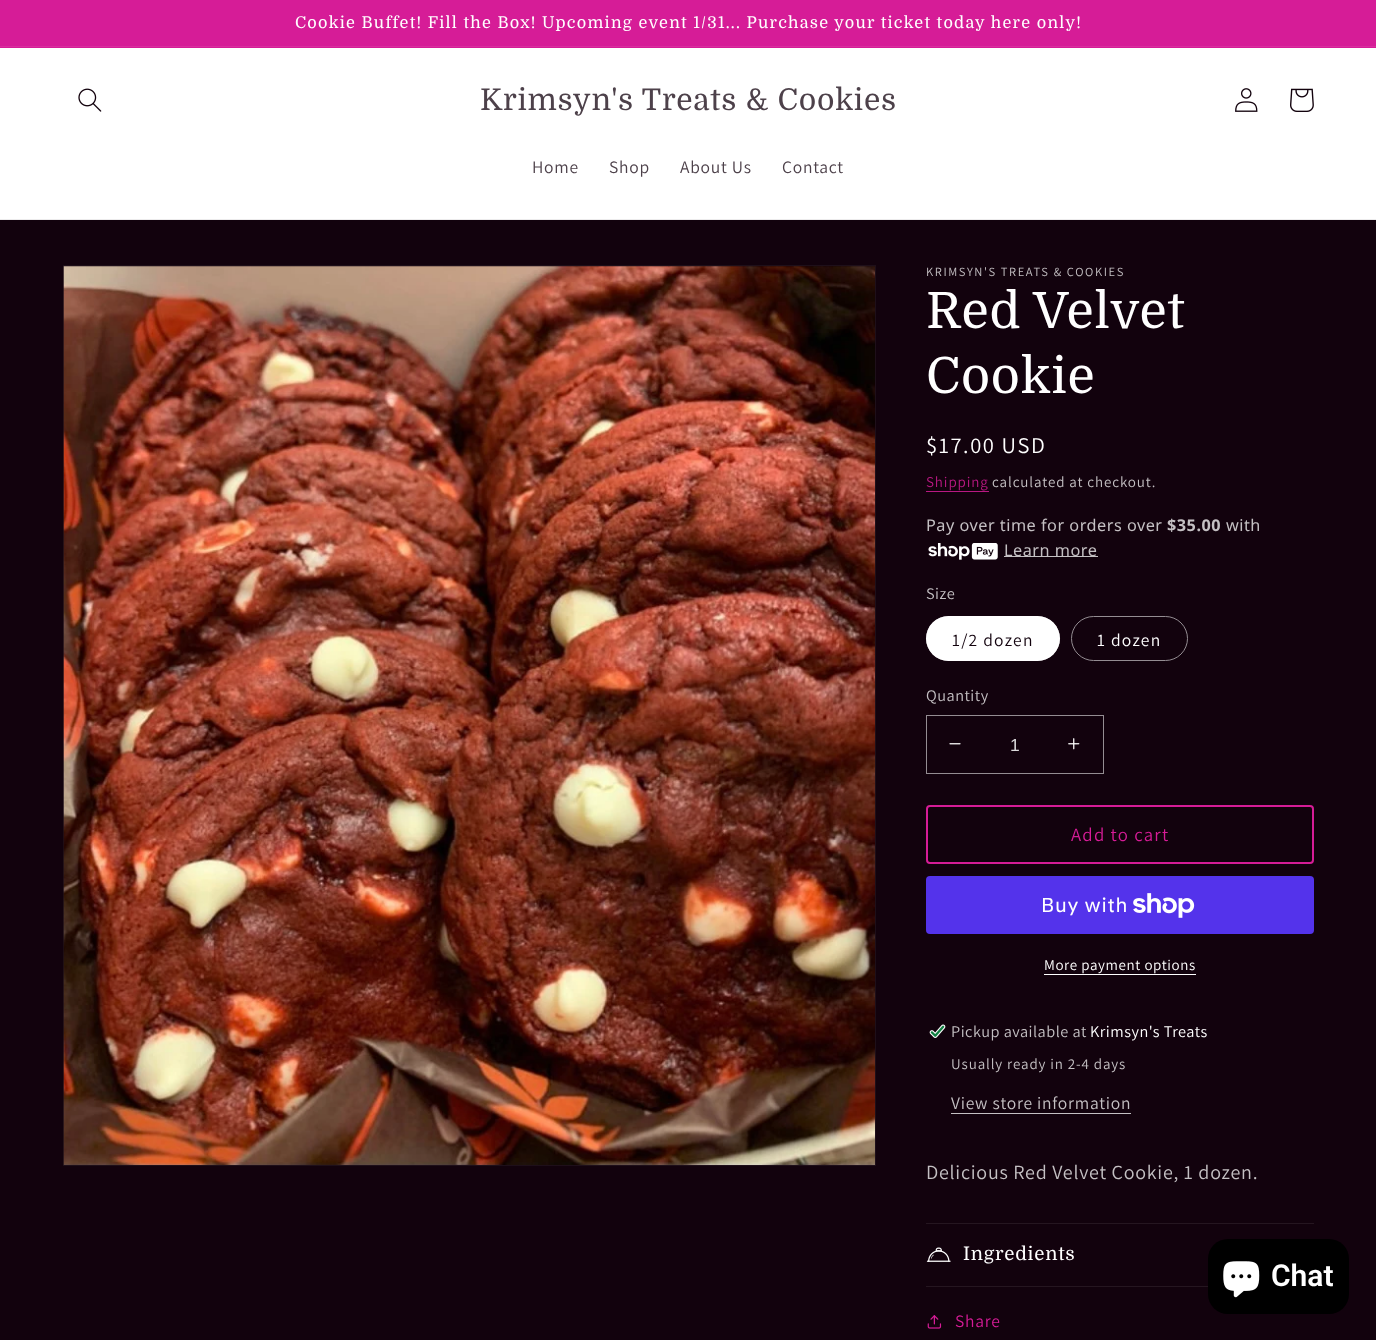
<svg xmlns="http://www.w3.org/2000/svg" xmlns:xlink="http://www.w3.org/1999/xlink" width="1376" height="1340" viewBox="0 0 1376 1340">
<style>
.cls-1{font:16.25px Domine;letter-spacing:1.25px;fill:#ffffff}
.cls-2{font:30px Domine;letter-spacing:0.75px;fill:#4d414a}
.cls-3{font:17.5px Assistant;letter-spacing:0.75px;fill:#4d414a}
.cls-4{font:12.5px Assistant;letter-spacing:1.6px;fill:#c4c0c3}
.cls-5{font:50px Domine;letter-spacing:0.75px;fill:#ffffff}
.cls-6{font:22.5px Assistant;letter-spacing:1.6px;fill:#ffffff}
.cls-7{font:15px Assistant;letter-spacing:0.9px;fill:#b91882}
.cls-8{font:15px Assistant;letter-spacing:0.9px;fill:#c4c0c3}
.cls-9{font:16.25px Noto Sans;letter-spacing:0.5px;fill:#c4c0c3}
.cls-10{font:bold 16.25px Noto Sans;letter-spacing:0.5px;fill:#c4c0c3}
.cls-11{font:16.25px Assistant;letter-spacing:0.5px;fill:#c4c0c3}
.cls-12{font:17.5px Assistant;letter-spacing:1.25px;fill:#12020d}
.cls-13{font:17.5px Assistant;letter-spacing:1.25px;fill:#ffffff}
.cls-14{font:17.5px Liberation Sans;fill:#dbd9db}
.cls-15{font:18.75px Assistant;letter-spacing:1.25px;fill:#d61c97}
.cls-16{font:20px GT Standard;letter-spacing:0.75px;fill:#ffffff}
.cls-17{font:15px Assistant;letter-spacing:0.6px;fill:#ffffff}
.cls-18{font:16.25px Assistant;letter-spacing:0.5px;fill:#ffffff}
.cls-19{font:17.5px Assistant;letter-spacing:0.75px;fill:#c4c0c3}
.cls-20{font:20px Assistant;letter-spacing:0.75px;fill:#c4c0c3}
.cls-21{font:18.75px Domine;letter-spacing:0.75px;fill:#ffffff}
.cls-22{font:17.5px Assistant;letter-spacing:0.75px;fill:#d61c97}
.cls-23{font:600 30px Roboto;fill:#ffffff}
</style>
<rect width="100%" height="100%" fill="#12020d"/>
<rect fill="#d61c97" x="0" y="0" width="1376" height="48"/>
<rect fill="#d92e9f" x="0" y="46" width="1376" height="1"/>
<rect fill="#ffffff" x="0" y="48" width="1376" height="171"/>
<rect fill="#ecebec" x="0" y="219" width="1376" height="1"/>
<image xlink:href="image0.png" x="78" y="88" width="24" height="24"/>
<image xlink:href="image1.png" x="1235" y="88" width="23" height="24"/>
<image xlink:href="image2.png" x="1290" y="88" width="24" height="24"/>
<rect fill="none" stroke="#1e0f19" x="63.5" y="265.5" width="812" height="900"/>
<image xlink:href="image3.png" x="63" y="266" width="812" height="899"/>
<rect fill="#b91882" x="926" y="491" width="63" height="1"/>
<image xlink:href="image4.png" x="928" y="543" width="70" height="17"/>
<rect fill="#c4c0c3" x="1004" y="556" width="94" height="1"/>
<rect fill="#ffffff" x="926" y="616" width="134" height="45" rx="22.5"/>
<rect fill="none" stroke="#ffffff" stroke-opacity="0.55" x="926.5" y="616.5" width="133" height="44" rx="22"/>
<rect fill="none" stroke="#948d92" x="1071.5" y="616.5" width="116" height="44" rx="22"/>
<image xlink:href="image5.png" x="949" y="743" width="12" height="2"/>
<image xlink:href="image6.png" x="1068" y="738" width="12" height="12"/>
<rect fill="none" stroke="#948d92" x="926.5" y="715.5" width="177" height="58"/>
<rect fill="none" stroke="#d61c97" stroke-width="2" x="927" y="806" width="386" height="57" rx="3"/>
<rect fill="#5433eb" x="926" y="876" width="388" height="58" rx="4"/>
<image xlink:href="image7.png" x="1133" y="893" width="62" height="25"/>
<rect fill="#ffffff" x="1044" y="974" width="152" height="1"/>
<image xlink:href="image8.png" x="929" y="1024" width="17" height="14"/>
<rect fill="#c4c0c3" x="951" y="1113" width="180" height="1"/>
<rect fill="#251620" x="926" y="1223" width="388" height="1"/>
<rect fill="#251620" x="926" y="1286" width="282" height="1"/>
<image xlink:href="image9.png" x="926" y="1247" width="25" height="15"/>
<image xlink:href="image10.png" x="927" y="1315" width="15" height="14"/>
<rect fill="#000000" x="1208" y="1239" width="141" height="75" rx="20"/>
<image xlink:href="image11.png" x="1223" y="1261" width="37" height="37"/>
<text class="cls-1" x="295" y="28">Cookie Buffet! Fill the Box! Upcoming event 1/31... Purchase your ticket today here only!</text>
<text class="cls-2" x="480" y="110">Krimsyn's Treats &amp; Cookies</text>
<text class="cls-3" x="532" y="173">Home</text>
<text class="cls-3" x="609" y="173">Shop</text>
<text class="cls-3" x="680" y="173">About Us</text>
<text class="cls-3" x="782" y="173">Contact</text>
<text class="cls-4" x="926" y="276">KRIMSYN'S TREATS &amp; COOKIES</text>
<text class="cls-5"><tspan x="926" y="328">Red Velvet</tspan><tspan x="926" y="393">Cookie</tspan></text>
<text class="cls-6" x="926" y="453">$17.00 USD</text>
<text class="cls-7" x="926" y="487">Shipping</text>
<text class="cls-8" x="992" y="487">calculated at checkout.</text>
<text class="cls-9" x="926" y="531">Pay over time for orders over</text>
<text class="cls-10" x="1167" y="531">$35.00</text>
<text class="cls-9" x="1226" y="531">with</text>
<text class="cls-9" x="1004" y="556">Learn more</text>
<text class="cls-11" x="926" y="599">Size</text>
<text class="cls-12" x="952" y="646">1/2 dozen</text>
<text class="cls-13" x="1097" y="646">1 dozen</text>
<text class="cls-11" x="926" y="701">Quantity</text>
<text class="cls-14" x="1010" y="751">1</text>
<text class="cls-15" x="1071" y="841">Add to cart</text>
<text class="cls-16" x="1041" y="912">Buy with</text>
<text class="cls-17" x="1044" y="970">More payment options</text>
<text class="cls-11" x="951" y="1037">Pickup available at</text>
<text class="cls-18" x="1090" y="1037">Krimsyn's Treats</text>
<text class="cls-8" x="951" y="1069">Usually ready in 2-4 days</text>
<text class="cls-19" x="951" y="1109">View store information</text>
<text class="cls-20" x="926" y="1179">Delicious Red Velvet Cookie, 1 dozen.</text>
<text class="cls-21" x="963" y="1260">Ingredients</text>
<text class="cls-22" x="955" y="1327">Share</text>
<text class="cls-23" x="1271" y="1286">Chat</text>
</svg>
